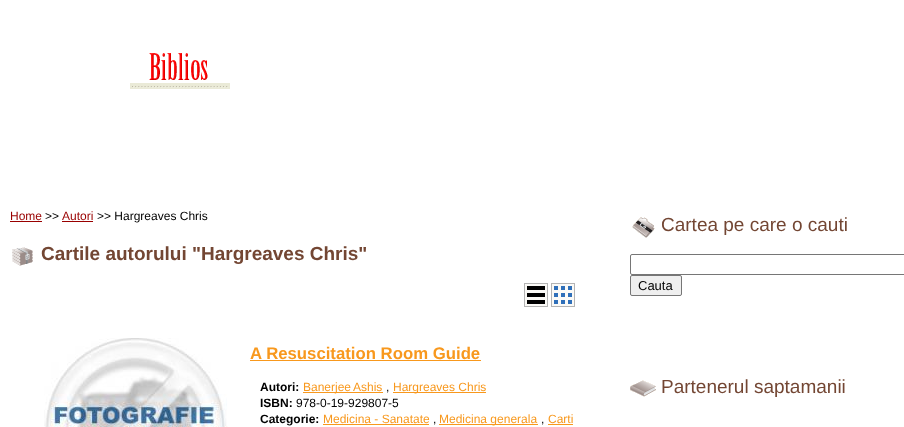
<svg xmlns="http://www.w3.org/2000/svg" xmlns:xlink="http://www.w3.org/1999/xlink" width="904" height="427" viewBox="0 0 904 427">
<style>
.cls-1{font:12px Liberation Sans;fill:#990000}
.cls-2{font:12px Liberation Sans;fill:#000000}
.cls-3{font:bold 19px Liberation Sans;fill:#734633}
.cls-4{font:bold 16.75px Liberation Sans;fill:#f8981d}
.cls-5{font:bold 12px Liberation Sans;fill:#000000}
.cls-6{font:12px Liberation Sans;fill:#f8981d}
.cls-7{font:19px Liberation Sans;fill:#734633}
.cls-8{font:13px Liberation Sans;fill:#000000}
</style>
<rect width="100%" height="100%" fill="#ffffff"/>
<image xlink:href="image0.png" x="130" y="53" width="100" height="36"/>
<rect fill="#990000" x="10" y="221" width="32" height="1"/>
<rect fill="#990000" x="62" y="221" width="31" height="1"/>
<image xlink:href="image1.png" x="12" y="247" width="21" height="19"/>
<image xlink:href="image2.png" x="524" y="283" width="24" height="24"/>
<image xlink:href="image3.png" x="551" y="283" width="24" height="24"/>
<image xlink:href="image4.png" x="44" y="338" width="184" height="89"/>
<rect fill="#f8981d" x="250" y="360" width="231" height="1"/>
<rect fill="#f8981d" x="303" y="392" width="80" height="1"/>
<rect fill="#f8981d" x="393" y="392" width="93" height="1"/>
<rect fill="#f8981d" x="323" y="424" width="106" height="1"/>
<rect fill="#f8981d" x="439" y="424" width="99" height="1"/>
<rect fill="#f8981d" x="548" y="424" width="25" height="1"/>
<image xlink:href="image5.png" x="632" y="217" width="23" height="21"/>
<rect fill="none" stroke="#767676" x="630.5" y="254.5" width="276" height="20" rx="1.5"/>
<rect fill="#efefef" stroke="#767676" x="630.5" y="275.5" width="51" height="20" rx="1.5"/>
<image xlink:href="image6.png" x="630" y="380" width="26" height="17"/>
<text class="cls-1" x="10" y="220">Home</text>
<text class="cls-2" x="45" y="220">&gt;&gt;</text>
<text class="cls-1" x="62" y="220">Autori</text>
<text class="cls-2" x="97" y="220">&gt;&gt; Hargreaves Chris</text>
<text class="cls-3" x="41" y="260">Cartile autorului "Hargreaves Chris"</text>
<text class="cls-4" x="250" y="359">A Resuscitation Room Guide</text>
<text class="cls-5" x="260" y="391">Autori:</text>
<text class="cls-6" x="303" y="391">Banerjee</text>
<text class="cls-6" x="353" y="391">Ashis</text>
<text class="cls-2" x="386" y="391">,</text>
<text class="cls-6" x="393" y="391">Hargreaves Chris</text>
<text class="cls-5" x="260" y="407">ISBN:</text>
<text class="cls-2" x="296" y="407">978-0-19-929807-5</text>
<text class="cls-5" x="260" y="423">Categorie:</text>
<text class="cls-6" x="323" y="423">Medicina - Sanatate</text>
<text class="cls-2" x="433" y="423">,</text>
<text class="cls-6" x="439" y="423">Medicina generala</text>
<text class="cls-2" x="541" y="423">,</text>
<text class="cls-6" x="548" y="423">Carti</text>
<text class="cls-7" x="661" y="231">Cartea pe care o cauti</text>
<text class="cls-8" x="638" y="290">Cauta</text>
<text class="cls-7" x="661" y="393">Partenerul saptamanii</text>
</svg>
